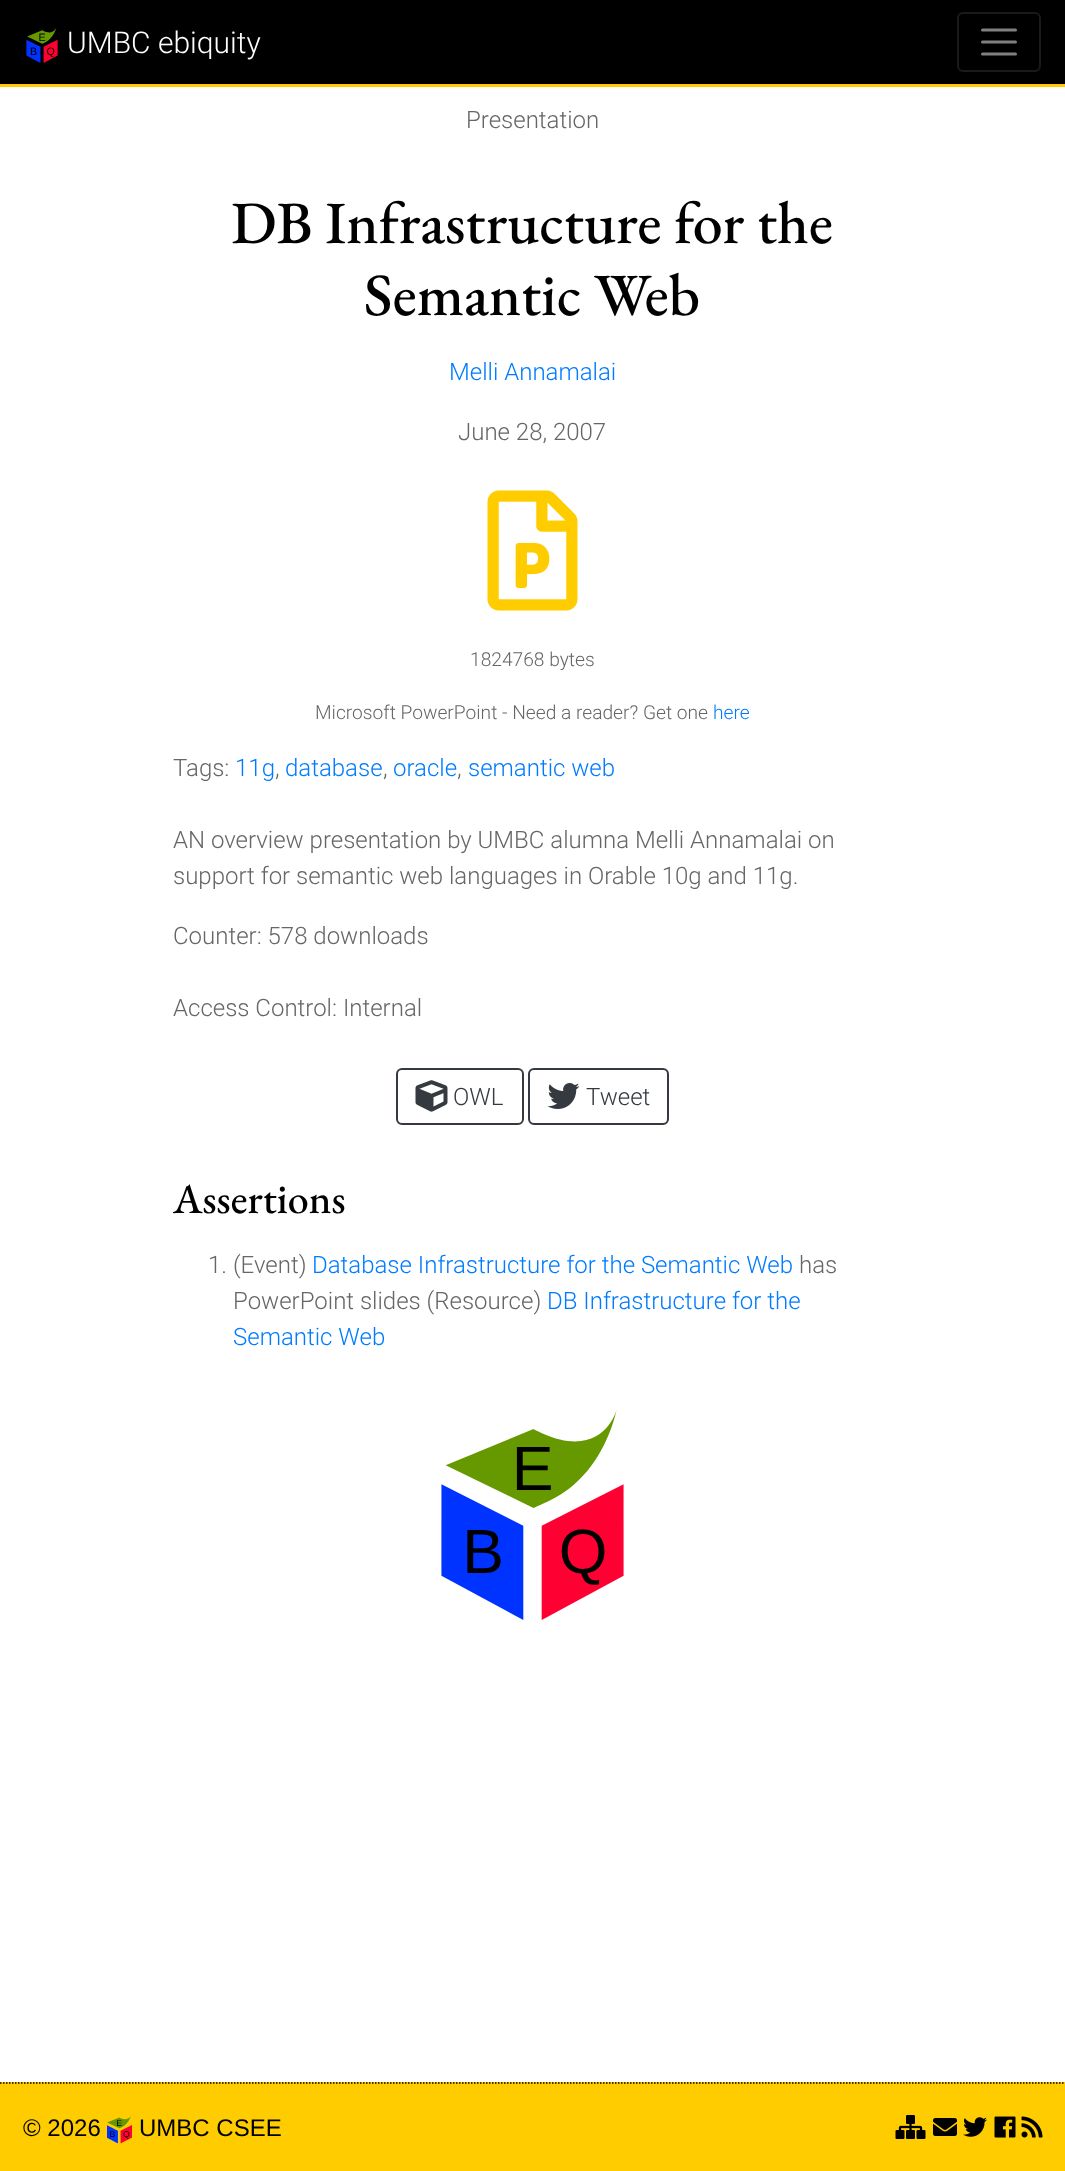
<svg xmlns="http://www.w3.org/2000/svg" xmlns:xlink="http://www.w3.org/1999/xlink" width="1065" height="2171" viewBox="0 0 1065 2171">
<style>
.cls-1{font:300 30px Roboto;fill:#ffffff}
.cls-2{font:300 24px Roboto;fill:#666666}
.cls-3{font:500 60px EB Garamond;fill:#000000}
.cls-4{font:300 24px Roboto;fill:#007bff}
.cls-5{font:300 19.2px Roboto;fill:#666666}
.cls-6{font:300 19.2px Roboto;fill:#007bff}
.cls-7{font:300 24px Roboto;fill:#343a40}
.cls-8{font:500 42px EB Garamond;fill:#000000}
.cls-9{font:24px Liberation Sans;fill:#000000}
</style>
<rect width="100%" height="100%" fill="#ffffff"/>
<rect fill="#000000" x="0" y="0" width="1065" height="84"/>
<rect fill="#ffcc00" x="0" y="84" width="1065" height="3"/>
<image xlink:href="image0.png" x="26" y="27" width="32" height="36"/>
<rect fill="none" stroke="#1a1a1a" stroke-width="2" x="958" y="13" width="82" height="58" rx="5"/>
<path fill="none" stroke="#808080" stroke-width="3" stroke-linecap="round" d="M982.5 30H1015.5M982.5 42H1015.5M982.5 54H1015.5"/>
<image xlink:href="image1.png" x="487" y="490" width="91" height="121"/>
<rect fill="none" stroke="#343a40" stroke-width="2" x="397" y="1069" width="126" height="55" rx="5"/>
<image xlink:href="image2.png" x="415" y="1080" width="33" height="32"/>
<rect fill="none" stroke="#343a40" stroke-width="2" x="529" y="1069" width="139" height="55" rx="5"/>
<image xlink:href="image3.png" x="547" y="1083" width="33" height="26"/>
<image xlink:href="image4.png" x="441" y="1410" width="183" height="210"/>
<rect fill="#ffcc00" x="0" y="2082" width="1065" height="89"/>
<path fill="none" stroke="#000000" stroke-width="1.5" stroke-dasharray="1.5 1.5" d="M0 2083H1065"/>
<image xlink:href="image5.png" x="107" y="2115" width="25" height="29"/>
<image xlink:href="image6.png" x="895" y="2115" width="31" height="24"/>
<image xlink:href="image7.png" x="933" y="2118" width="24" height="18"/>
<image xlink:href="image8.png" x="963" y="2117" width="24" height="20"/>
<image xlink:href="image9.png" x="994" y="2116" width="22" height="22"/>
<image xlink:href="image10.png" x="1021" y="2116" width="22" height="22"/>
<text class="cls-1" x="67" y="53">UMBC ebiquity</text>
<text class="cls-2" x="466" y="128">Presentation</text>
<text class="cls-3" x="231" y="243">DB Infrastructure for the</text>
<text class="cls-3" x="364" y="315">Semantic Web</text>
<text class="cls-4" x="449" y="380">Melli Annamalai</text>
<text class="cls-2" x="458" y="440">June 28, 2007</text>
<text class="cls-5" x="470" y="666">1824768 bytes</text>
<text class="cls-5" x="315" y="719">Microsoft PowerPoint - Need a reader? Get one</text>
<text class="cls-6" x="713" y="719">here</text>
<text class="cls-2" x="173" y="776">Tags:</text>
<text class="cls-4" x="235" y="776">11g</text>
<text class="cls-2" x="275" y="776">,</text>
<text class="cls-4" x="285" y="776">database</text>
<text class="cls-2" x="383" y="776">,</text>
<text class="cls-4" x="393" y="776">oracle</text>
<text class="cls-2" x="457" y="776">,</text>
<text class="cls-4" x="468" y="776">semantic web</text>
<text class="cls-2"><tspan x="173" y="848">AN overview presentation by UMBC alumna Melli Annamalai on</tspan><tspan x="173" y="884">support for semantic web languages in Orable 10g and 11g.</tspan></text>
<text class="cls-2" x="173" y="944">Counter: 578 downloads</text>
<text class="cls-2" x="173" y="1016">Access Control: Internal</text>
<text class="cls-7" x="453" y="1105">OWL</text>
<text class="cls-7" x="586" y="1105">Tweet</text>
<text class="cls-8" x="173" y="1213">Assertions</text>
<text class="cls-2" x="208" y="1273">1. (Event)</text>
<text class="cls-4" x="312" y="1273">Database Infrastructure for the Semantic Web</text>
<text class="cls-2" x="799" y="1273">has</text>
<text class="cls-2" x="233" y="1309">PowerPoint slides (Resource)</text>
<text class="cls-4" x="547" y="1309">DB Infrastructure for the</text>
<text class="cls-4" x="233" y="1345">Semantic Web</text>
<text class="cls-9" x="23" y="2136">© 2026</text>
<text class="cls-9" x="139" y="2136">UMBC CSEE</text>
</svg>
